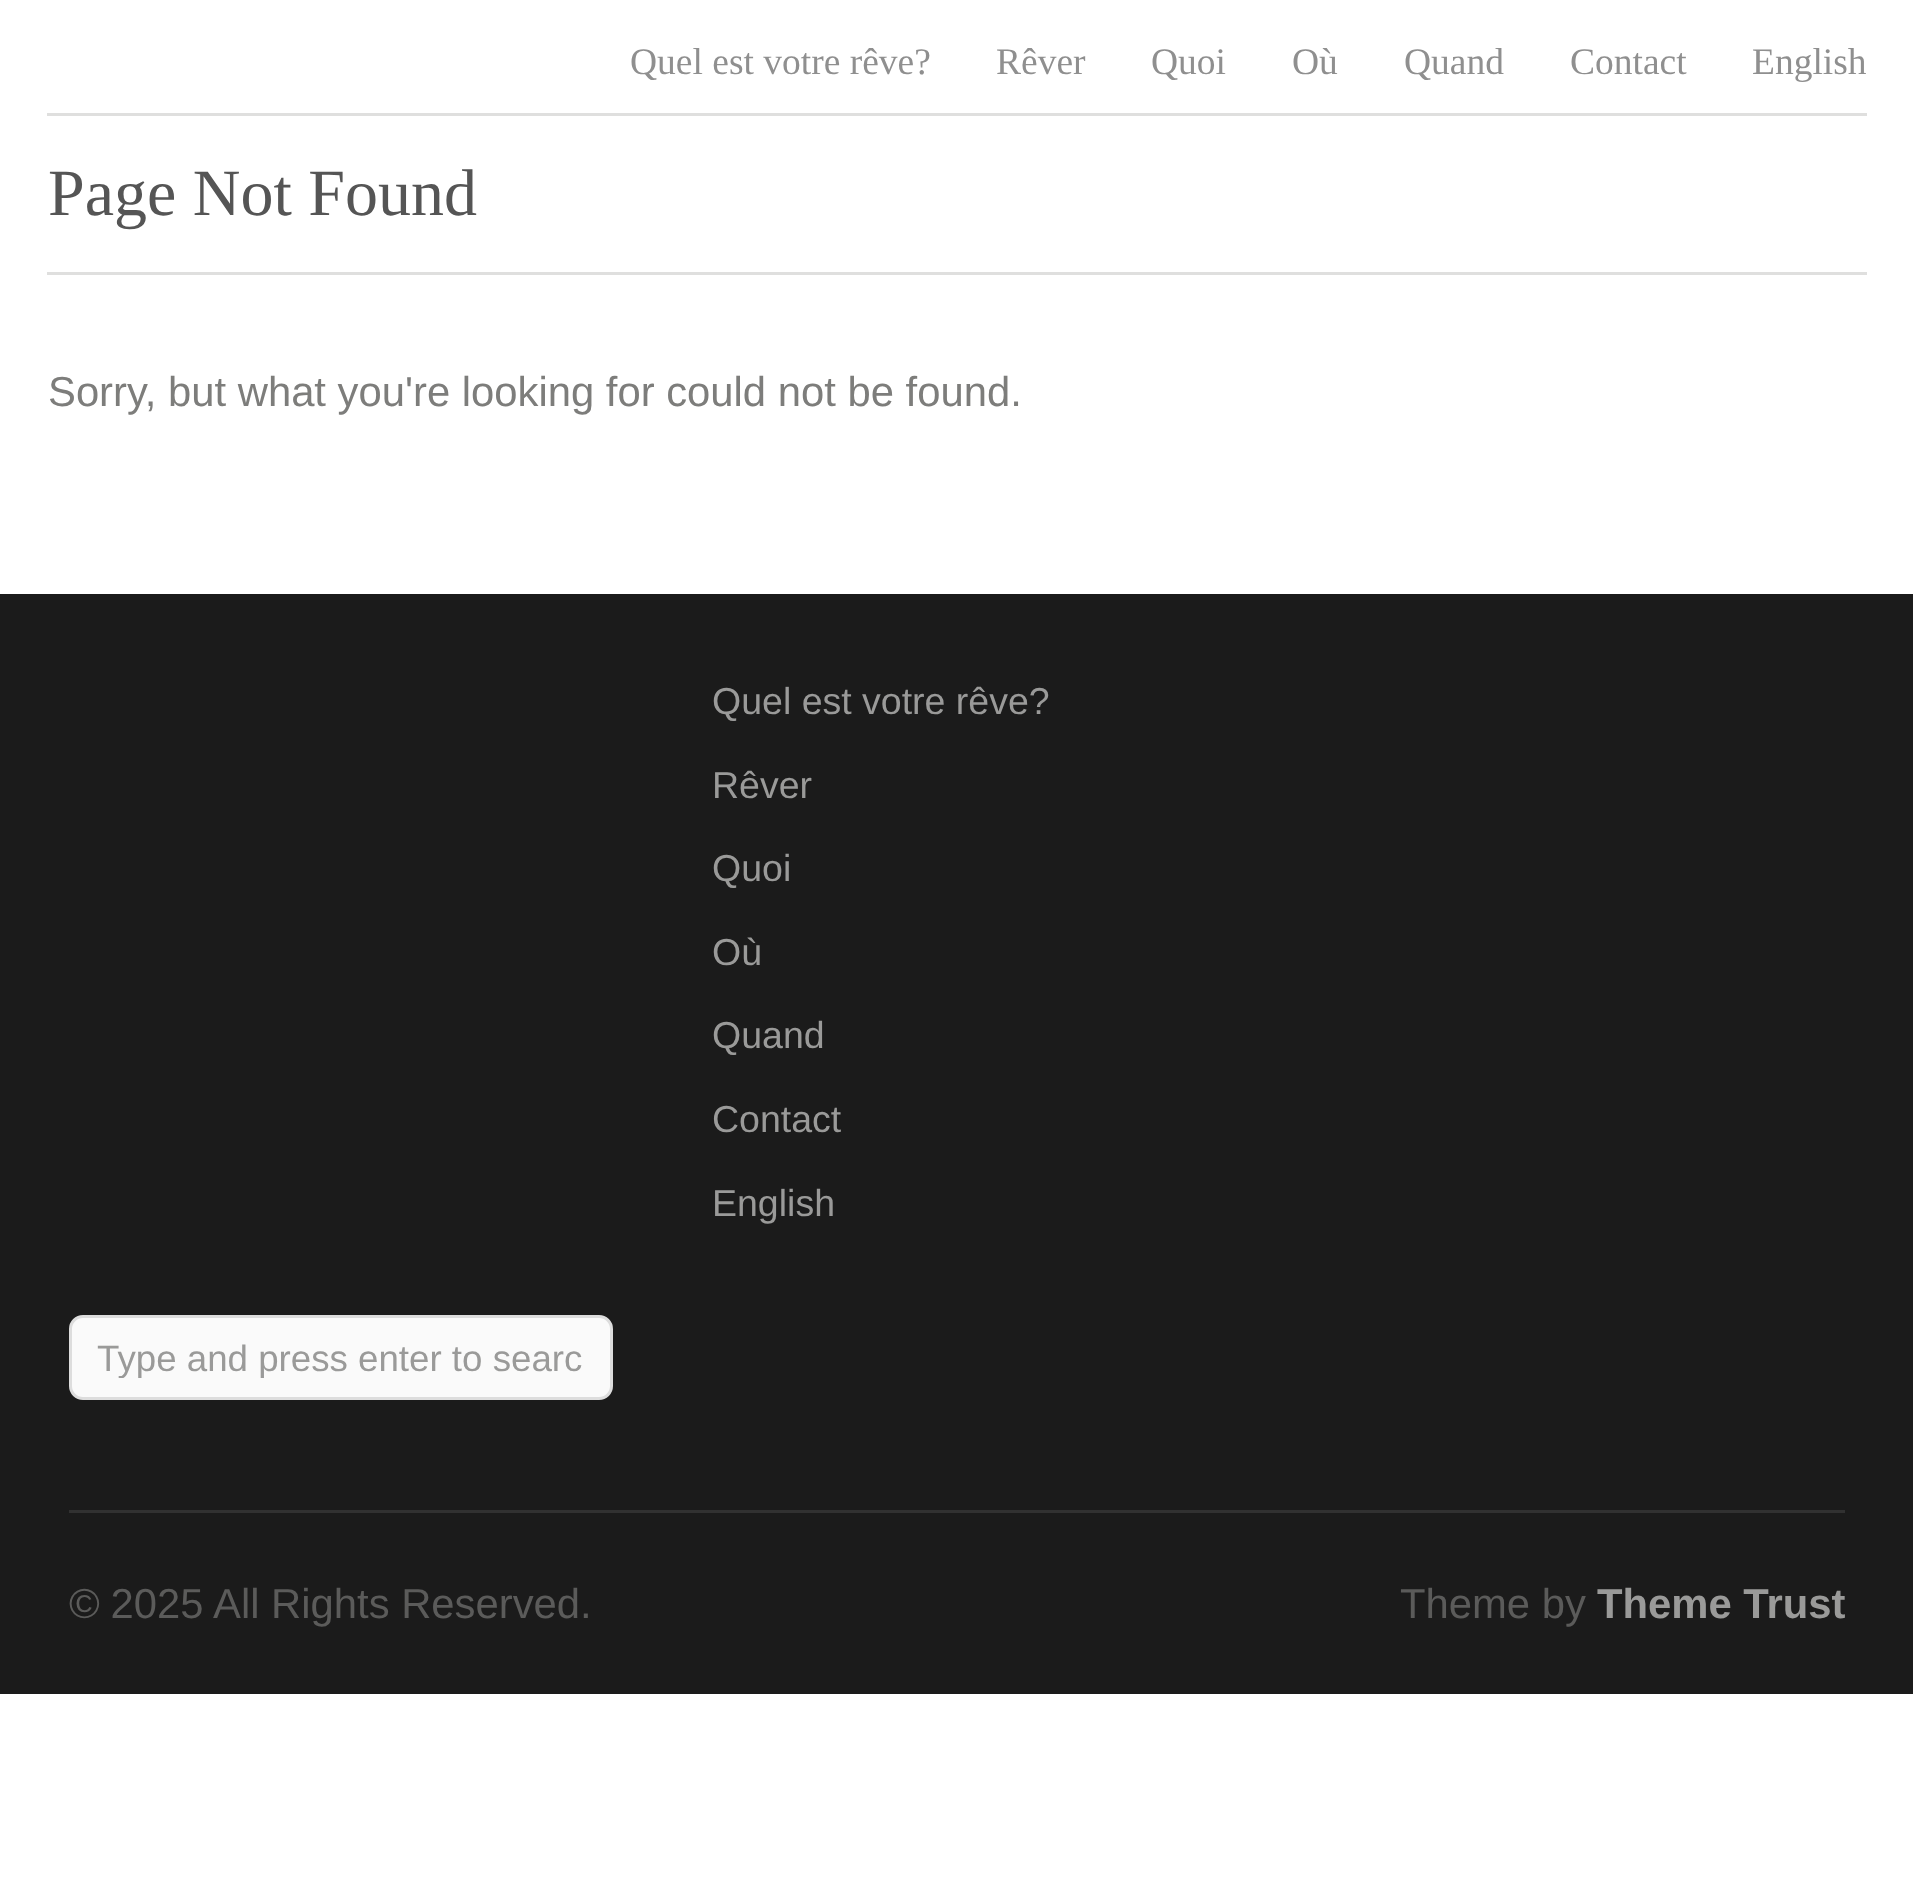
<svg xmlns="http://www.w3.org/2000/svg" xmlns:xlink="http://www.w3.org/1999/xlink" width="1913" height="1878" viewBox="0 0 1913 1878">
<style>
.cls-1{font:37.5px Liberation Serif;fill:#8f8f8f}
.cls-2{font:66px Liberation Serif;fill:#555555}
.cls-3{font:41.8px Liberation Sans;fill:#7d7d7b}
.cls-4{font:37.5px Liberation Sans;fill:#9a9a99}
.cls-5{font:36.7px Liberation Sans;fill:#9a9a99}
.cls-6{font:41.8px Liberation Sans;fill:#5b5b5a}
.cls-7{font:bold 41.8px Liberation Sans;fill:#9a9a99}
</style>
<defs>
<clipPath id="clip1"><rect x="96" y="1337" width="490" height="41"/></clipPath>
</defs>
<rect width="100%" height="100%" fill="#ffffff"/>
<rect fill="#dfdfde" x="47" y="113" width="1820" height="3"/>
<rect fill="#dfdfde" x="47" y="272" width="1820" height="3"/>
<rect fill="#1b1b1b" x="0" y="594" width="1913" height="1100"/>
<rect fill="#fafafa" stroke="#dddddd" stroke-width="3" x="70.5" y="1316.5" width="541" height="82" rx="12.5"/>
<rect fill="#313131" x="69" y="1510" width="1776" height="3"/>
<text class="cls-1" x="630" y="74">Quel est votre rêve?</text>
<text class="cls-1" x="996" y="74">Rêver</text>
<text class="cls-1" x="1151" y="74">Quoi</text>
<text class="cls-1" x="1292" y="74">Où</text>
<text class="cls-1" x="1404" y="74">Quand</text>
<text class="cls-1" x="1570" y="74">Contact</text>
<text class="cls-1" x="1752" y="74">English</text>
<text class="cls-2" x="48" y="215">Page Not Found</text>
<text class="cls-3" x="48" y="406">Sorry, but what you're looking for could not be found.</text>
<text class="cls-4" x="712" y="714">Quel est votre rêve?</text>
<text class="cls-4" x="712" y="798">Rêver</text>
<text class="cls-4" x="712" y="881">Quoi</text>
<text class="cls-4" x="712" y="965">Où</text>
<text class="cls-4" x="712" y="1048">Quand</text>
<text class="cls-4" x="712" y="1132">Contact</text>
<text class="cls-4" x="712" y="1216">English</text>
<g clip-path="url(#clip1)">
<text class="cls-5" x="97" y="1371">Type and press enter to searc</text>
</g>
<text class="cls-6" x="69" y="1618" word-spacing="-1">© 2025</text>
<text class="cls-6" x="213" y="1618">All Rights Reserved.</text>
<text class="cls-6" x="1400" y="1618">Theme by</text>
<text class="cls-7" x="1597" y="1618">Theme Trust</text>
</svg>
